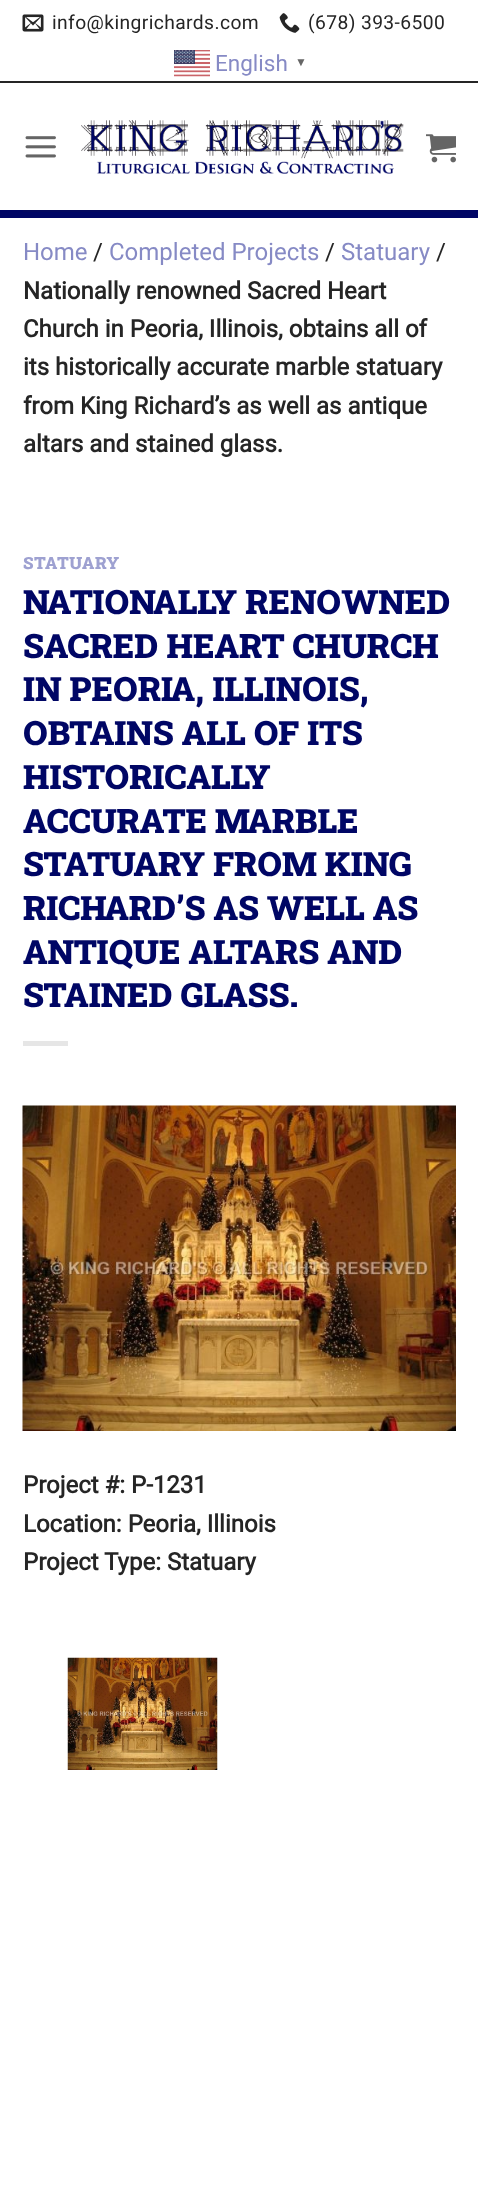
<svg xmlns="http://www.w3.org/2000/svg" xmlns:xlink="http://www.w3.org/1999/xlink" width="478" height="2205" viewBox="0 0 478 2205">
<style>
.cls-1{font:19.25px Roboto;letter-spacing:0.4px;fill:#252525}
.cls-2{font:22.5px Roboto;fill:#868ac5}
.cls-3{font:bold 12px Liberation Serif;fill:#666666}
.cls-4{font:24px Roboto;fill:#868ac5}
.cls-5{font:24px Roboto;fill:#252525}
.cls-6{font:bold 24px Roboto;fill:#252525}
.cls-7{font:900 16.75px Roboto Slab;letter-spacing:0.75px;fill:#9ea1d1}
.cls-8{font:900 33.6px Roboto Slab;fill:#000665}
</style>
<rect width="100%" height="100%" fill="#ffffff"/>
<rect fill="#252525" x="0" y="81" width="478" height="2"/>
<image xlink:href="image0.png" x="22" y="14" width="22" height="18"/>
<image xlink:href="image1.png" x="279" y="13" width="21" height="20"/>
<image xlink:href="image2.png" x="174" y="50" width="36" height="27"/>
<rect fill="#000665" x="0" y="210" width="478" height="8"/>
<image xlink:href="image3.png" x="25" y="136" width="31" height="22"/>
<image xlink:href="image4.png" x="81" y="120" width="323" height="54"/>
<image xlink:href="image5.png" x="426" y="134" width="30" height="29"/>
<rect fill="#04095f" x="23" y="210" width="433" height="2"/>
<rect fill="#e6e6e6" x="23" y="1041" width="45" height="5"/>
<image xlink:href="image6.png" x="22" y="1105" width="434" height="326"/>
<image xlink:href="image7.png" x="67" y="1657" width="151" height="113"/>
<text class="cls-1" x="52" y="29">info@kingrichards.com</text>
<text class="cls-1" x="308" y="29">(678) 393-6500</text>
<text class="cls-2" x="215" y="71">English</text>
<text class="cls-3" x="295" y="66">▼</text>
<text class="cls-4" x="23" y="260">Home</text>
<text class="cls-5" x="93" y="260">/</text>
<text class="cls-4" x="109" y="260">Completed Projects</text>
<text class="cls-5" x="325" y="260">/</text>
<text class="cls-4" x="341" y="260">Statuary</text>
<text class="cls-5" x="436" y="260">/</text>
<text class="cls-6"><tspan x="23" y="299">Nationally renowned Sacred Heart</tspan><tspan x="23" y="337">Church in Peoria, Illinois, obtains all of</tspan><tspan x="23" y="375">its historically accurate marble statuary</tspan><tspan x="23" y="414">from King Richard’s as well as antique</tspan><tspan x="23" y="452">altars and stained glass.</tspan></text>
<text class="cls-7" x="23" y="569">STATUARY</text>
<text class="cls-8"><tspan x="23" y="614">NATIONALLY RENOWNED</tspan><tspan x="23" y="658">SACRED HEART CHURCH</tspan><tspan x="23" y="701">IN PEORIA, ILLINOIS,</tspan><tspan x="23" y="745">OBTAINS ALL OF ITS</tspan><tspan x="23" y="789">HISTORICALLY</tspan><tspan x="23" y="833">ACCURATE MARBLE</tspan><tspan x="23" y="876">STATUARY FROM KING</tspan><tspan x="23" y="920">RICHARD’S AS WELL AS</tspan><tspan x="23" y="964">ANTIQUE ALTARS AND</tspan><tspan x="23" y="1007">STAINED GLASS.</tspan></text>
<text class="cls-6"><tspan x="23" y="1493">Project #: P-1231</tspan><tspan x="23" y="1532">Location: Peoria, Illinois</tspan><tspan x="23" y="1570">Project Type: Statuary</tspan></text>
</svg>
